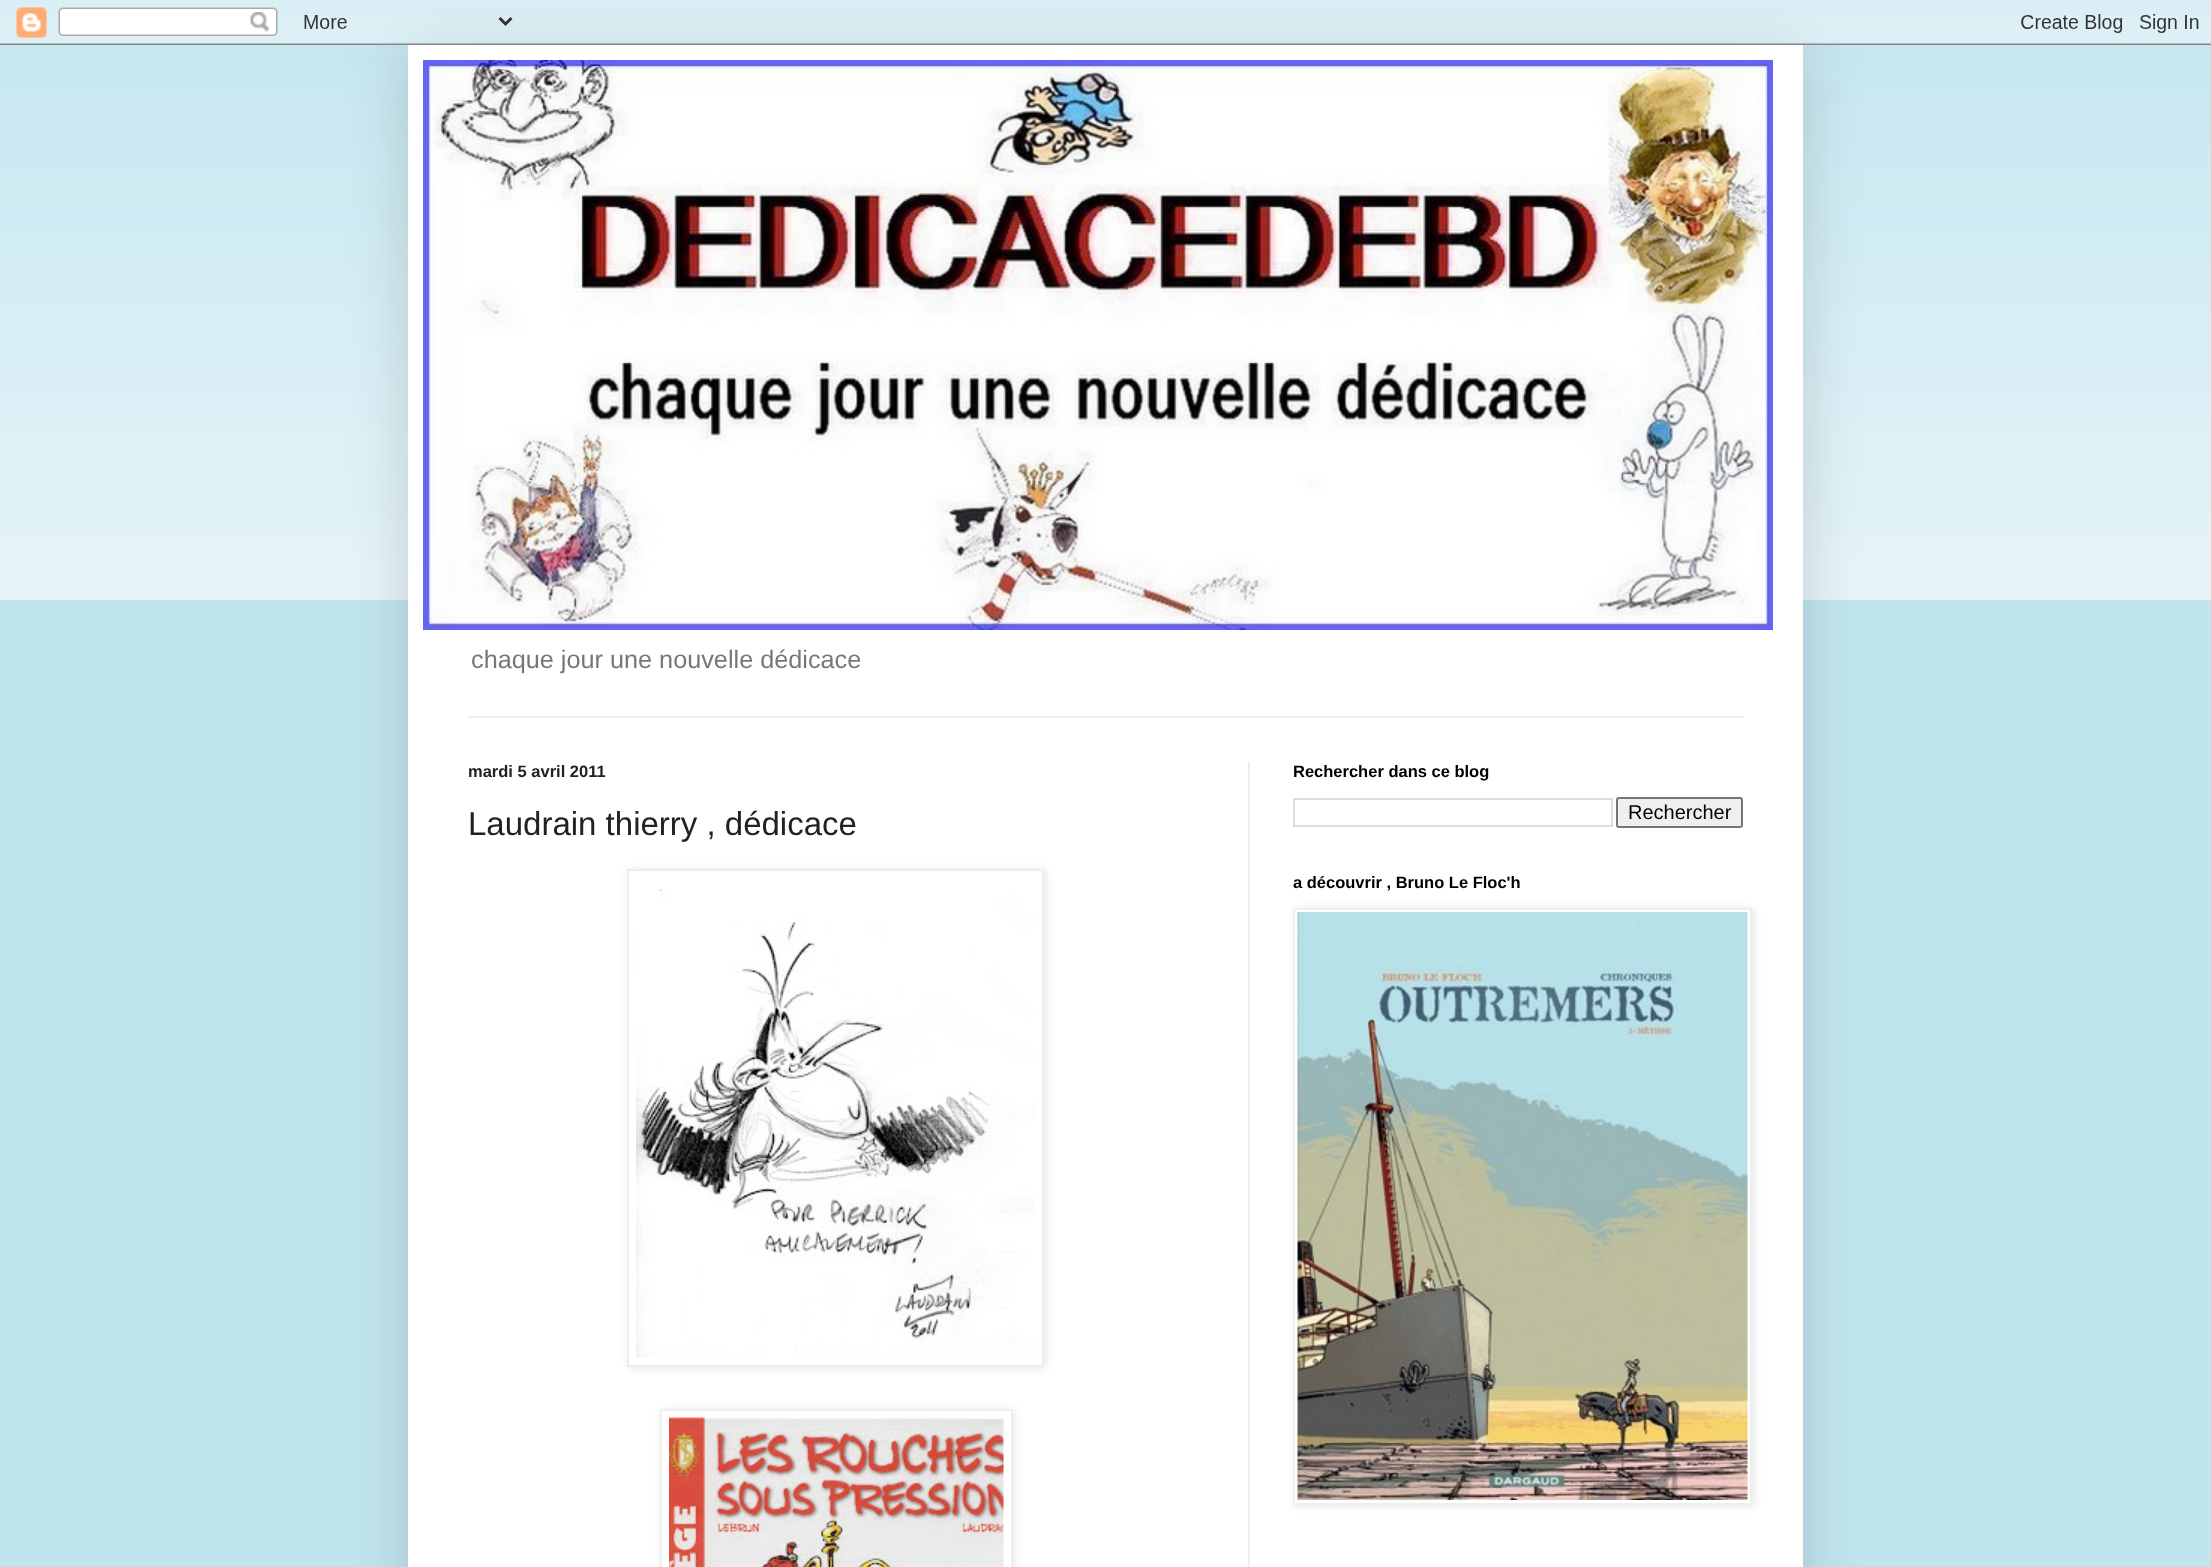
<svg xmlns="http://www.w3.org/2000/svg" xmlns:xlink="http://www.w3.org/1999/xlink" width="2211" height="1567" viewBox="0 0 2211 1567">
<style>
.cls-1{font:25.25px Liberation Sans;fill:#777777}
.cls-2{font:bold 16.5px Liberation Sans;fill:#222222}
.cls-3{font:33px Liberation Sans;fill:#222222}
.cls-4{font:bold 16.5px Liberation Sans;fill:#000000}
.cls-5{font:20px Liberation Sans;fill:#000000}
</style>
<rect width="100%" height="100%" fill="#c1e5ef"/>
<image xlink:href="image1.png" x="0" y="15" width="2211" height="585"/>
<rect fill="#000000" fill-opacity="0.15" filter="blur(30px)" x="408" y="45" width="1395" height="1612"/>
<image xlink:href="image0.png" x="0" y="0" width="2211" height="45"/>
<rect fill="#ffffff" x="408" y="45" width="1395" height="1522"/>
<image xlink:href="image2.png" x="423" y="60" width="1350" height="570"/>
<rect fill="#eeeeee" x="468" y="716" width="1275" height="2"/>
<rect fill="#eeeeee" x="1248" y="762" width="2" height="805"/>
<rect fill="#000000" fill-opacity="0.1" filter="blur(4px)" x="629" y="870" width="417" height="498"/>
<rect fill="#ffffff" stroke="#eeeeee" stroke-width="2" x="628" y="870" width="415" height="496"/>
<image xlink:href="image3.png" x="636" y="889" width="399" height="469"/>
<rect fill="#000000" fill-opacity="0.1" filter="blur(4px)" x="662" y="1410" width="352" height="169"/>
<rect fill="#ffffff" stroke="#eeeeee" stroke-width="2" x="661" y="1410" width="351" height="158"/>
<image xlink:href="image4.png" x="669" y="1417" width="335" height="150"/>
<rect fill="none" stroke="#dddddd" stroke-width="2" x="1294" y="799" width="318" height="27"/>
<rect fill="#efefef" stroke="#767676" stroke-width="2" x="1617" y="798" width="125" height="29" rx="2"/>
<rect fill="#000000" fill-opacity="0.1" filter="blur(4px)" x="1295" y="909" width="459" height="597"/>
<rect fill="#ffffff" stroke="#eeeeee" stroke-width="2" x="1294" y="909" width="457" height="595"/>
<image xlink:href="image5.png" x="1297" y="912" width="451" height="588"/>
<text class="cls-1" x="471" y="668">chaque jour une nouvelle dédicace</text>
<text class="cls-2" x="468" y="777">mardi 5 avril 2011</text>
<text class="cls-3" x="468" y="835">Laudrain thierry , dédicace</text>
<text class="cls-4" x="1293" y="777">Rechercher dans ce blog</text>
<text class="cls-5" x="1628" y="819">Rechercher</text>
<text class="cls-4" x="1293" y="888">a découvrir , Bruno Le Floc'h</text>
</svg>
